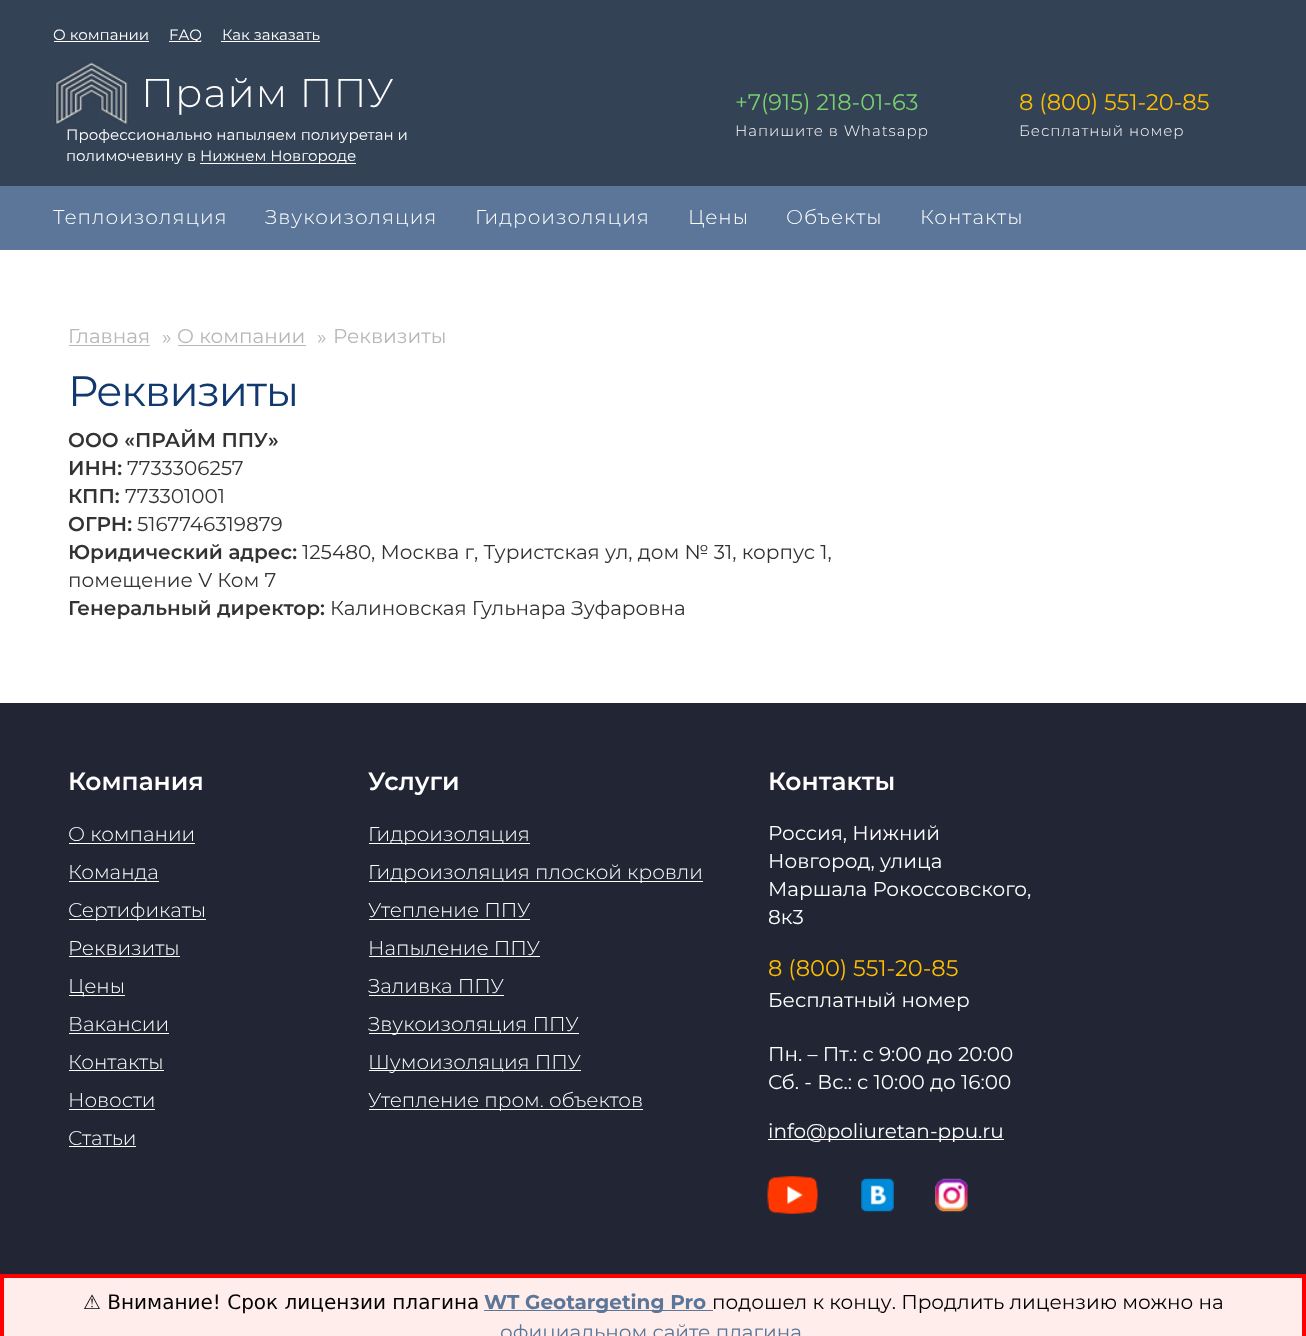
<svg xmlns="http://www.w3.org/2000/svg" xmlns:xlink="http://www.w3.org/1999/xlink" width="1306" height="1336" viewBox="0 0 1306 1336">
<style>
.cls-1{font:15px Montserrat;fill:#ffffff}
.cls-2{font:300 40px Montserrat;letter-spacing:1px;fill:#ffffff}
.cls-3{font:22.5px Montserrat;fill:#7ad06d}
.cls-4{font:300 15px Montserrat;letter-spacing:1px;fill:#ffffff}
.cls-5{font:22.5px Montserrat;fill:#ffbd00}
.cls-6{font:300 20px Montserrat;letter-spacing:1px;fill:#ffffff}
.cls-7{font:20px Montserrat;fill:#b7b7b7}
.cls-8{font:42.5px Montserrat;letter-spacing:-1.25px;fill:#11396f}
.cls-9{font:600 20px Montserrat;fill:#333333}
.cls-10{font:20px Montserrat;fill:#333333}
.cls-11{font:600 25px Montserrat;fill:#ffffff}
.cls-12{font:300 20px Montserrat;fill:#ffffff}
.cls-13{font:20px Montserrat;fill:#ffffff}
.cls-14{font:20px DejaVu Sans;fill:#000000}
.cls-15{font:bold 20px Montserrat;fill:#5b7698}
.cls-16{font:20px Montserrat;fill:#000000}
.cls-17{font:20px Montserrat;fill:#5b7698}
</style>
<rect width="100%" height="100%" fill="#ffffff"/>
<rect fill="#334255" x="0" y="0" width="1306" height="186"/>
<rect fill="#ffffff" x="54" y="41" width="95" height="1"/>
<rect fill="#ffffff" x="169" y="41" width="32" height="1"/>
<rect fill="#ffffff" x="221" y="41" width="99" height="1"/>
<image xlink:href="image0.png" x="55" y="61" width="74" height="64"/>
<rect fill="#ffffff" x="200" y="163" width="156" height="1"/>
<rect fill="#5b7698" x="0" y="186" width="1306" height="64"/>
<rect fill="#b7b7b7" x="69" y="345" width="81" height="1"/>
<rect fill="#b7b7b7" x="178" y="345" width="128" height="1"/>
<rect fill="#222534" x="0" y="703" width="1306" height="571"/>
<rect fill="#ffffff" x="69" y="843" width="126" height="1"/>
<rect fill="#ffffff" x="69" y="881" width="90" height="1"/>
<rect fill="#ffffff" x="69" y="919" width="137" height="1"/>
<rect fill="#ffffff" x="69" y="956" width="111" height="1"/>
<rect fill="#ffffff" x="69" y="995" width="56" height="1"/>
<rect fill="#ffffff" x="69" y="1033" width="100" height="1"/>
<rect fill="#ffffff" x="69" y="1070" width="95" height="1"/>
<rect fill="#ffffff" x="69" y="1109" width="86" height="1"/>
<rect fill="#ffffff" x="69" y="1146" width="67" height="1"/>
<rect fill="#ffffff" x="369" y="843" width="161" height="1"/>
<rect fill="#ffffff" x="369" y="881" width="334" height="1"/>
<rect fill="#ffffff" x="369" y="919" width="161" height="1"/>
<rect fill="#ffffff" x="369" y="956" width="171" height="1"/>
<rect fill="#ffffff" x="369" y="995" width="135" height="1"/>
<rect fill="#ffffff" x="369" y="1033" width="210" height="1"/>
<rect fill="#ffffff" x="369" y="1070" width="212" height="1"/>
<rect fill="#ffffff" x="369" y="1109" width="274" height="1"/>
<rect fill="#ffffff" x="768" y="1139" width="236" height="1"/>
<image xlink:href="image1.png" x="767" y="1176" width="51" height="38"/>
<image xlink:href="image2.png" x="861" y="1178" width="33" height="34"/>
<image xlink:href="image3.png" x="935" y="1178" width="33" height="34"/>
<rect fill="#ffedeb" stroke="#ff0000" stroke-width="4" x="2" y="1276" width="1302" height="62"/>
<rect fill="#5b7698" x="484" y="1310" width="229" height="1"/>
<text class="cls-1" x="53" y="40">О компании</text>
<text class="cls-1" x="169" y="40">FAQ</text>
<text class="cls-1" x="222" y="40">Как заказать</text>
<text class="cls-2" x="141" y="107">Прайм ППУ</text>
<text class="cls-1"><tspan x="66" y="140">Профессионально напыляем полиуретан и</tspan><tspan x="66" y="161">полимочевину в</tspan></text>
<text class="cls-1" x="200" y="161">Нижнем Новгороде</text>
<text class="cls-3" x="735" y="110">+7(915) 218-01-63</text>
<text class="cls-4" x="735" y="136">Напишите в Whatsapp</text>
<text class="cls-5" x="1019" y="110">8 (800) 551-20-85</text>
<text class="cls-4" x="1019" y="136">Бесплатный номер</text>
<text class="cls-6" x="53" y="224">Теплоизоляция</text>
<text class="cls-6" x="265" y="224">Звукоизоляция</text>
<text class="cls-6" x="475" y="224">Гидроизоляция</text>
<text class="cls-6" x="688" y="224">Цены</text>
<text class="cls-6" x="786" y="224">Объекты</text>
<text class="cls-6" x="920" y="224">Контакты</text>
<text class="cls-7" x="68" y="343">Главная</text>
<text class="cls-7" x="162" y="344">»</text>
<text class="cls-7" x="177" y="343">О компании</text>
<text class="cls-7" x="317" y="344">»</text>
<text class="cls-7" x="333" y="343">Реквизиты</text>
<text class="cls-8" x="68" y="406">Реквизиты</text>
<text class="cls-9"><tspan x="68" y="447">ООО «ПРАЙМ ППУ»</tspan><tspan x="68" y="475">ИНН:</tspan></text>
<text class="cls-10" x="127" y="475">7733306257</text>
<text class="cls-9" x="68" y="503">КПП:</text>
<text class="cls-10" x="125" y="503">773301001</text>
<text class="cls-9" x="68" y="531">ОГРН:</text>
<text class="cls-10" x="137" y="531">5167746319879</text>
<text class="cls-9" x="68" y="559">Юридический адрес:</text>
<text class="cls-10" x="302" y="559">125480, Москва г, Туристская ул, дом № 31, корпус 1,</text>
<text class="cls-10" x="68" y="587">помещение V Ком 7</text>
<text class="cls-9" x="68" y="615">Генеральный директор:</text>
<text class="cls-10" x="330" y="615">Калиновская Гульнара Зуфаровна</text>
<text class="cls-11" x="68" y="790">Компания</text>
<text class="cls-12"><tspan x="68" y="841">О компании</tspan><tspan x="68" y="879">Команда</tspan><tspan x="68" y="917">Сертификаты</tspan><tspan x="68" y="955">Реквизиты</tspan><tspan x="68" y="993">Цены</tspan><tspan x="68" y="1031">Вакансии</tspan><tspan x="68" y="1069">Контакты</tspan><tspan x="68" y="1107">Новости</tspan><tspan x="68" y="1145">Статьи</tspan></text>
<text class="cls-11" x="368" y="790">Услуги</text>
<text class="cls-12"><tspan x="368" y="841">Гидроизоляция</tspan><tspan x="368" y="879">Гидроизоляция плоской кровли</tspan><tspan x="368" y="917">Утепление ППУ</tspan><tspan x="368" y="955">Напыление ППУ</tspan><tspan x="368" y="993">Заливка ППУ</tspan><tspan x="368" y="1031">Звукоизоляция ППУ</tspan><tspan x="368" y="1069">Шумоизоляция ППУ</tspan><tspan x="368" y="1107">Утепление пром. объектов</tspan></text>
<text class="cls-11" x="768" y="790">Контакты</text>
<text class="cls-13"><tspan x="768" y="840">Россия, Нижний</tspan><tspan x="768" y="868">Новгород, улица</tspan><tspan x="768" y="896">Маршала Рокоссовского,</tspan><tspan x="768" y="924">8к3</tspan></text>
<text class="cls-5" x="768" y="976">8 (800) 551-20-85</text>
<text class="cls-13" x="768" y="1007">Бесплатный номер</text>
<text class="cls-13"><tspan x="768" y="1061">Пн. – Пт.: с 9:00 до 20:00</tspan><tspan x="768" y="1089">Сб. - Вс.: с 10:00 до 16:00</tspan></text>
<text class="cls-13" x="768" y="1138">info@poliuretan-ppu.ru</text>
<text class="cls-14" x="83" y="1309">⚠ Внимание! ️Срок лицензии плагина</text>
<text class="cls-15" x="484" y="1309">WT Geotargeting Pro</text>
<text class="cls-16" x="712" y="1309">подошел к концу. Продлить лицензию можно на</text>
<text class="cls-17" x="500" y="1339">официальном сайте плагина</text>
</svg>
